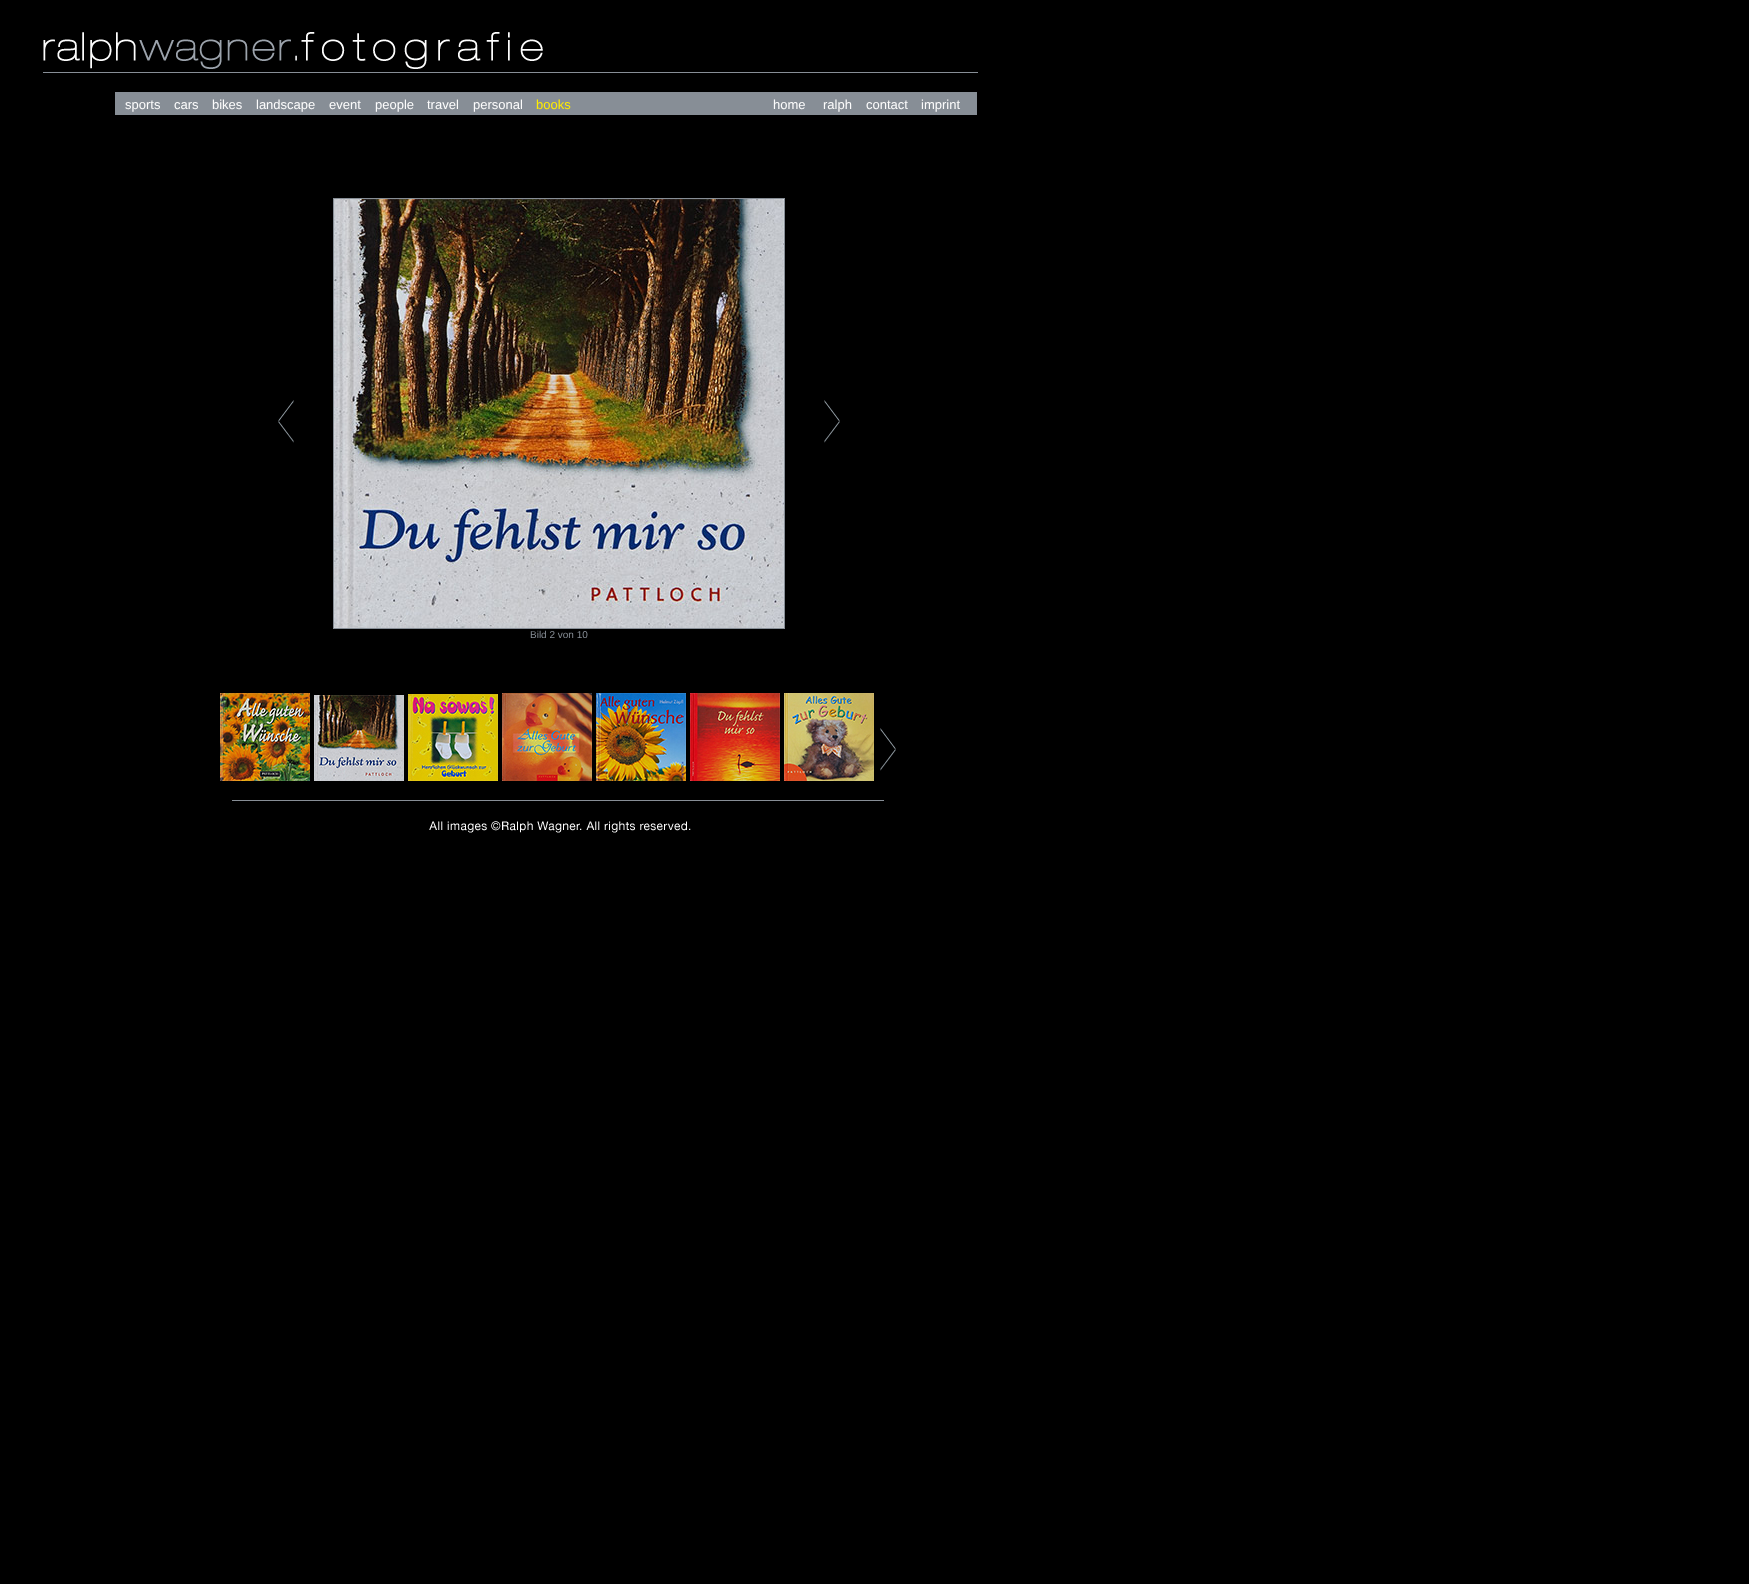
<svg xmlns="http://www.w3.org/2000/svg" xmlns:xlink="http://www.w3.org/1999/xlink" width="1749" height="1584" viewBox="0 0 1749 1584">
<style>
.cls-1{font:13px Liberation Sans;fill:#fdfdfd}
.cls-2{font:13px Liberation Sans;fill:#ffec00}
.cls-3{font:10px Liberation Sans;fill:#878e96}
</style>
<rect width="100%" height="100%" fill="#000000"/>
<image xlink:href="image0.png" x="43" y="32" width="500" height="37"/>
<rect fill="#878e96" x="43" y="72" width="935" height="1"/>
<rect fill="#878e96" x="115" y="92" width="862" height="23"/>
<image xlink:href="image1.png" x="278" y="400" width="16" height="43"/>
<image xlink:href="image2.png" x="824" y="400" width="16" height="43"/>
<rect fill="none" stroke="#878e96" x="333.5" y="198.5" width="451" height="430"/>
<image xlink:href="image3.png" x="334" y="199" width="450" height="429"/>
<image xlink:href="image4.png" x="220" y="693" width="90" height="88"/>
<image xlink:href="image5.png" x="314" y="695" width="90" height="86"/>
<image xlink:href="image6.png" x="408" y="694" width="90" height="87"/>
<image xlink:href="image7.png" x="502" y="693" width="90" height="88"/>
<image xlink:href="image8.png" x="596" y="693" width="90" height="88"/>
<image xlink:href="image9.png" x="690" y="693" width="90" height="88"/>
<image xlink:href="image10.png" x="784" y="693" width="90" height="88"/>
<image xlink:href="image2.png" x="880" y="728" width="16" height="43"/>
<image xlink:href="image11.png" x="429" y="821" width="262" height="12"/>
<rect fill="#878e96" x="232" y="800" width="652" height="1"/>
<text class="cls-1" x="125" y="109">sports</text>
<text class="cls-1" x="174" y="109">cars</text>
<text class="cls-1" x="212" y="109">bikes</text>
<text class="cls-1" x="256" y="109">landscape</text>
<text class="cls-1" x="329" y="109">event</text>
<text class="cls-1" x="375" y="109">people</text>
<text class="cls-1" x="427" y="109">travel</text>
<text class="cls-1" x="473" y="109">personal</text>
<text class="cls-2" x="536" y="109">books</text>
<text class="cls-1" x="773" y="109">home</text>
<text class="cls-1" x="823" y="109">ralph</text>
<text class="cls-1" x="866" y="109">contact</text>
<text class="cls-1" x="921" y="109">imprint</text>
<text class="cls-3" x="530" y="638">Bild 2 von 10</text>
</svg>
